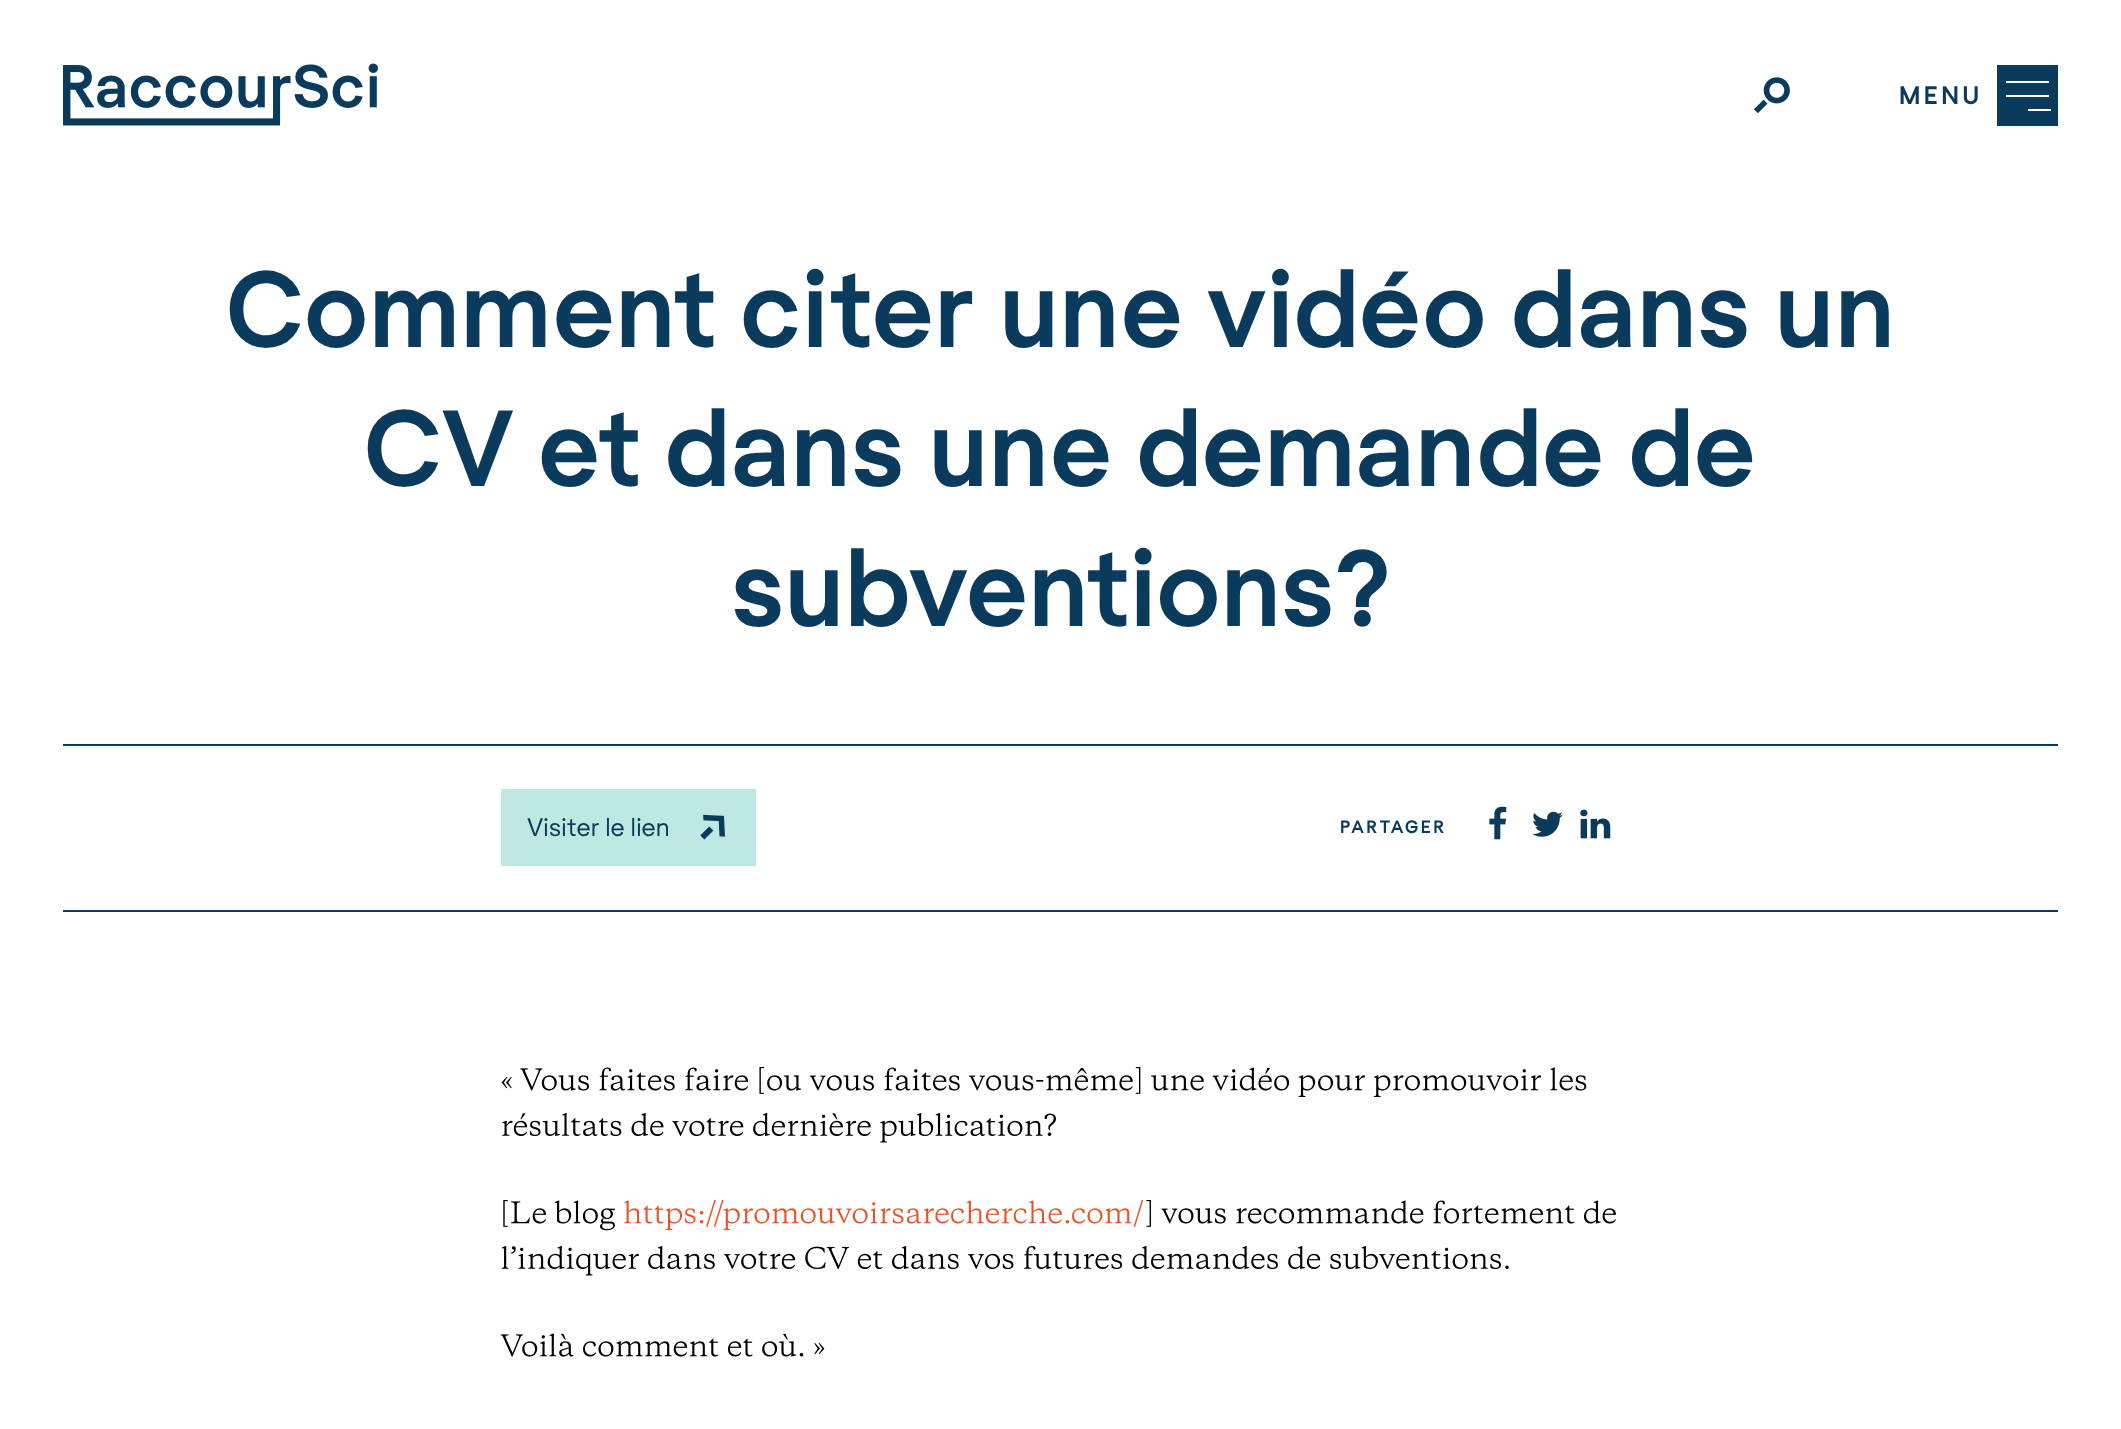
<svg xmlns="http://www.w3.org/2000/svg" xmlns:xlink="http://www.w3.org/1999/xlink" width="2121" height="1429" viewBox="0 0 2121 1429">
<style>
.cls-1{font:bold 24.5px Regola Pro;letter-spacing:3.5px;fill:#0a3b5c}
.cls-2{font:bold 105px Regola Pro;fill:#0a3b5c}
.cls-3{font:24.5px Regola Pro;fill:#0a3b5c}
.cls-4{font:bold 17.5px Regola Pro;letter-spacing:2.5px;fill:#0a3b5c}
</style>
<rect width="100%" height="100%" fill="#ffffff"/>
<image xlink:href="image0.png" x="63" y="63" width="315" height="63"/>
<image xlink:href="image1.png" x="1754" y="77" width="36" height="37"/>
<rect fill="#0a3b5c" x="1997" y="65" width="61" height="61"/>
<rect fill="#ffffff" x="2006" y="81" width="43" height="2"/>
<rect fill="#ffffff" x="2006" y="95" width="43" height="2"/>
<rect fill="#ffffff" x="2028" y="109" width="23" height="2"/>
<rect fill="#0a3b5c" x="63" y="744" width="1995" height="2"/>
<rect fill="#0a3b5c" x="63" y="910" width="1995" height="2"/>
<rect fill="#bee8e1" x="501" y="789" width="255" height="77"/>
<image xlink:href="image2.png" x="700" y="814" width="25" height="26"/>
<image xlink:href="image3.png" x="1489" y="806" width="18" height="34"/>
<image xlink:href="image4.png" x="1532" y="811" width="31" height="26"/>
<image xlink:href="image5.png" x="1580" y="809" width="31" height="30"/>
<image xlink:href="image6.png" x="501" y="1067" width="1086" height="30"/>
<image xlink:href="image7.png" x="502" y="1113" width="554" height="30"/>
<image xlink:href="image8.png" x="503" y="1200" width="112" height="31"/>
<image xlink:href="image9.png" x="624" y="1200" width="520" height="30"/>
<image xlink:href="image10.png" x="1146" y="1200" width="470" height="27"/>
<image xlink:href="image11.png" x="501" y="1246" width="1008" height="30"/>
<image xlink:href="image12.png" x="500" y="1333" width="325" height="24"/>
<text class="cls-1" x="1899" y="104">MENU</text>
<text class="cls-2" x="226" y="347">Comment citer une vidéo dans un</text>
<text class="cls-2" x="364" y="486">CV et dans une demande de</text>
<text class="cls-2" x="731" y="626">subventions?</text>
<text class="cls-3" x="527" y="836">Visiter le lien</text>
<text class="cls-4" x="1340" y="833">PARTAGER</text>
</svg>
